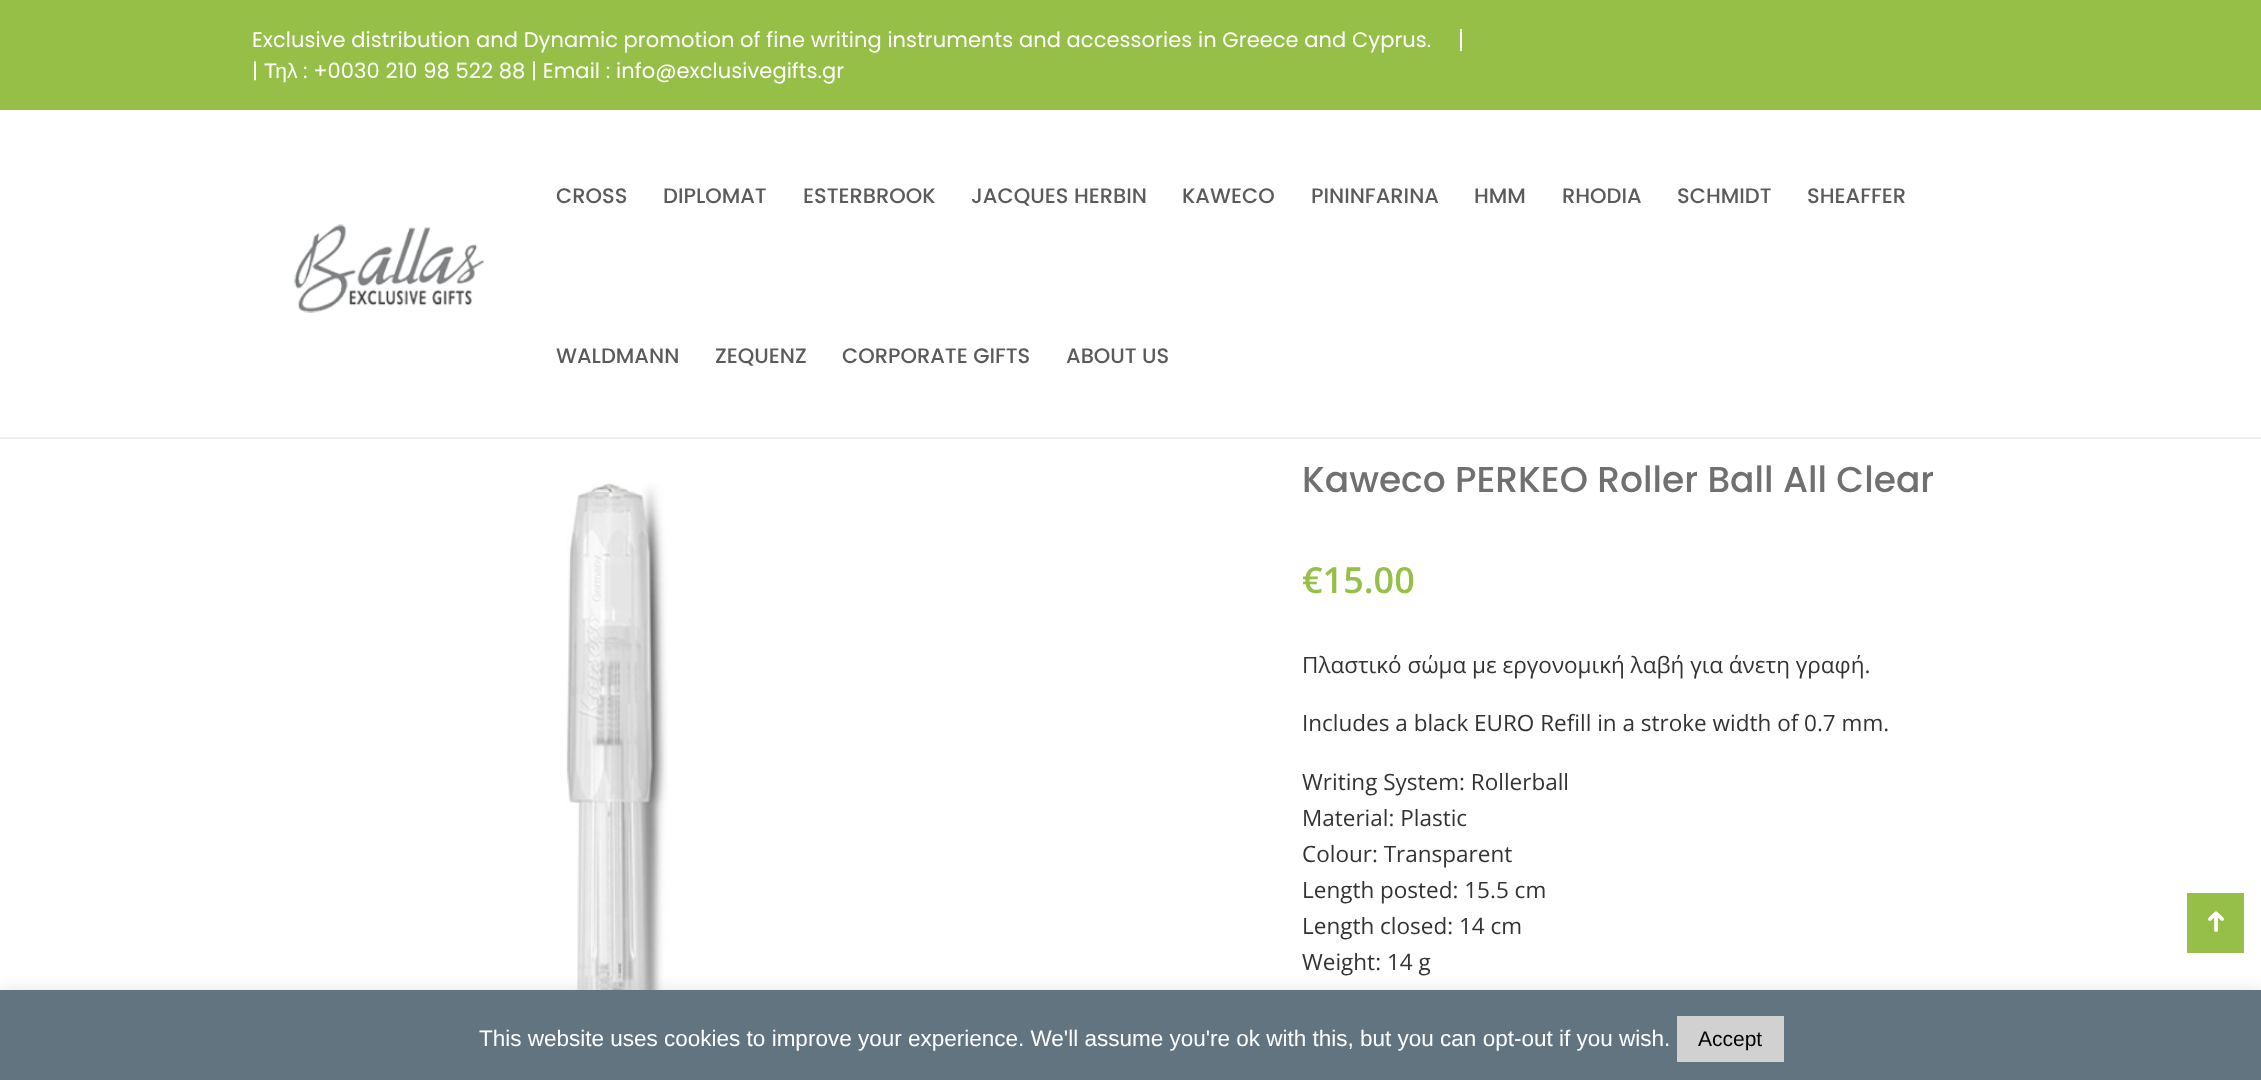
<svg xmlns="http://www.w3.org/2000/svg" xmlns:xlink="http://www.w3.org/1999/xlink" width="2261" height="1080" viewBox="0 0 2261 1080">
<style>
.cls-1{font:21px Poppins;letter-spacing:0.06px;fill:#ffffff}
.cls-2{font:21px Liberation Sans;letter-spacing:0.06px;fill:#ffffff}
.cls-3{font:500 21px Poppins;fill:#5b5b5b}
.cls-4{font:500 36px Poppins;fill:#707070}
.cls-5{font:600 36px Open Sans;fill:#96bf48}
.cls-6{font:22.5px Open Sans;fill:#333333}
.cls-7{font:22.5px Liberation Sans;fill:#ffffff}
.cls-8{font:21px Liberation Sans;fill:#000000}
</style>
<rect width="100%" height="100%" fill="#ffffff"/>
<rect fill="#96bf48" x="0" y="0" width="2261" height="110"/>
<rect fill="#ffffff" x="1460" y="29" width="2" height="22"/>
<rect fill="#ededed" x="0" y="437" width="2261" height="2"/>
<image xlink:href="image0.png" x="293" y="224" width="191" height="89"/>
<image xlink:href="image1.png" x="566" y="483" width="102" height="507"/>
<rect fill="#96bf48" x="2187" y="893" width="57" height="60"/>
<image xlink:href="image2.png" x="2208" y="911" width="16" height="21"/>
<rect fill="#acabab" fill-opacity="0.3" filter="blur(7.5px)" x="0" y="989" width="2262" height="90"/>
<rect fill="#62747f" x="0" y="990" width="2261" height="90"/>
<rect fill="#d1d1d1" x="1677" y="1016" width="107" height="46"/>
<text class="cls-1"><tspan x="252" y="47">Exclusive distribution and Dynamic promotion of fine writing instruments and accessories in Greece and Cyprus.</tspan><tspan x="252" y="78">|</tspan></text>
<text class="cls-2" x="264" y="78">Τηλ</text>
<text class="cls-1" x="303" y="78">: +0030 210 98 522 88 | Email : info@exclusivegifts.gr</text>
<text class="cls-3" x="556" y="203">CROSS</text>
<text class="cls-3" x="663" y="203">DIPLOMAT</text>
<text class="cls-3" x="803" y="203">ESTERBROOK</text>
<text class="cls-3" x="971" y="203">JACQUES HERBIN</text>
<text class="cls-3" x="1182" y="203">KAWECO</text>
<text class="cls-3" x="1311" y="203">PININFARINA</text>
<text class="cls-3" x="1474" y="203">HMM</text>
<text class="cls-3" x="1562" y="203">RHODIA</text>
<text class="cls-3" x="1677" y="203">SCHMIDT</text>
<text class="cls-3" x="1807" y="203">SHEAFFER</text>
<text class="cls-3" x="556" y="363">WALDMANN</text>
<text class="cls-3" x="715" y="363">ZEQUENZ</text>
<text class="cls-3" x="842" y="363">CORPORATE GIFTS</text>
<text class="cls-3" x="1066" y="363">ABOUT US</text>
<text class="cls-4" x="1302" y="492">Kaweco PERKEO Roller Ball All Clear</text>
<text class="cls-5" x="1302" y="593">€15.00</text>
<text class="cls-6" x="1302" y="673">Πλαστικό σώμα με εργονομική λαβή για άνετη γραφή.</text>
<text class="cls-6" x="1302" y="731">Includes a black EURO Refill in a stroke width of 0.7 mm.</text>
<text class="cls-6"><tspan x="1302" y="790">Writing System: Rollerball</tspan><tspan x="1302" y="826">Material: Plastic</tspan><tspan x="1302" y="862">Colour: Transparent</tspan><tspan x="1302" y="898">Length posted: 15.5 cm</tspan><tspan x="1302" y="934">Length closed: 14 cm</tspan><tspan x="1302" y="970">Weight: 14 g</tspan></text>
<text class="cls-7" x="479" y="1046">This website uses cookies to improve your experience. We'll assume you're ok with this, but you can opt-out if you wish.</text>
<text class="cls-8" x="1698" y="1046">Accept</text>
</svg>
